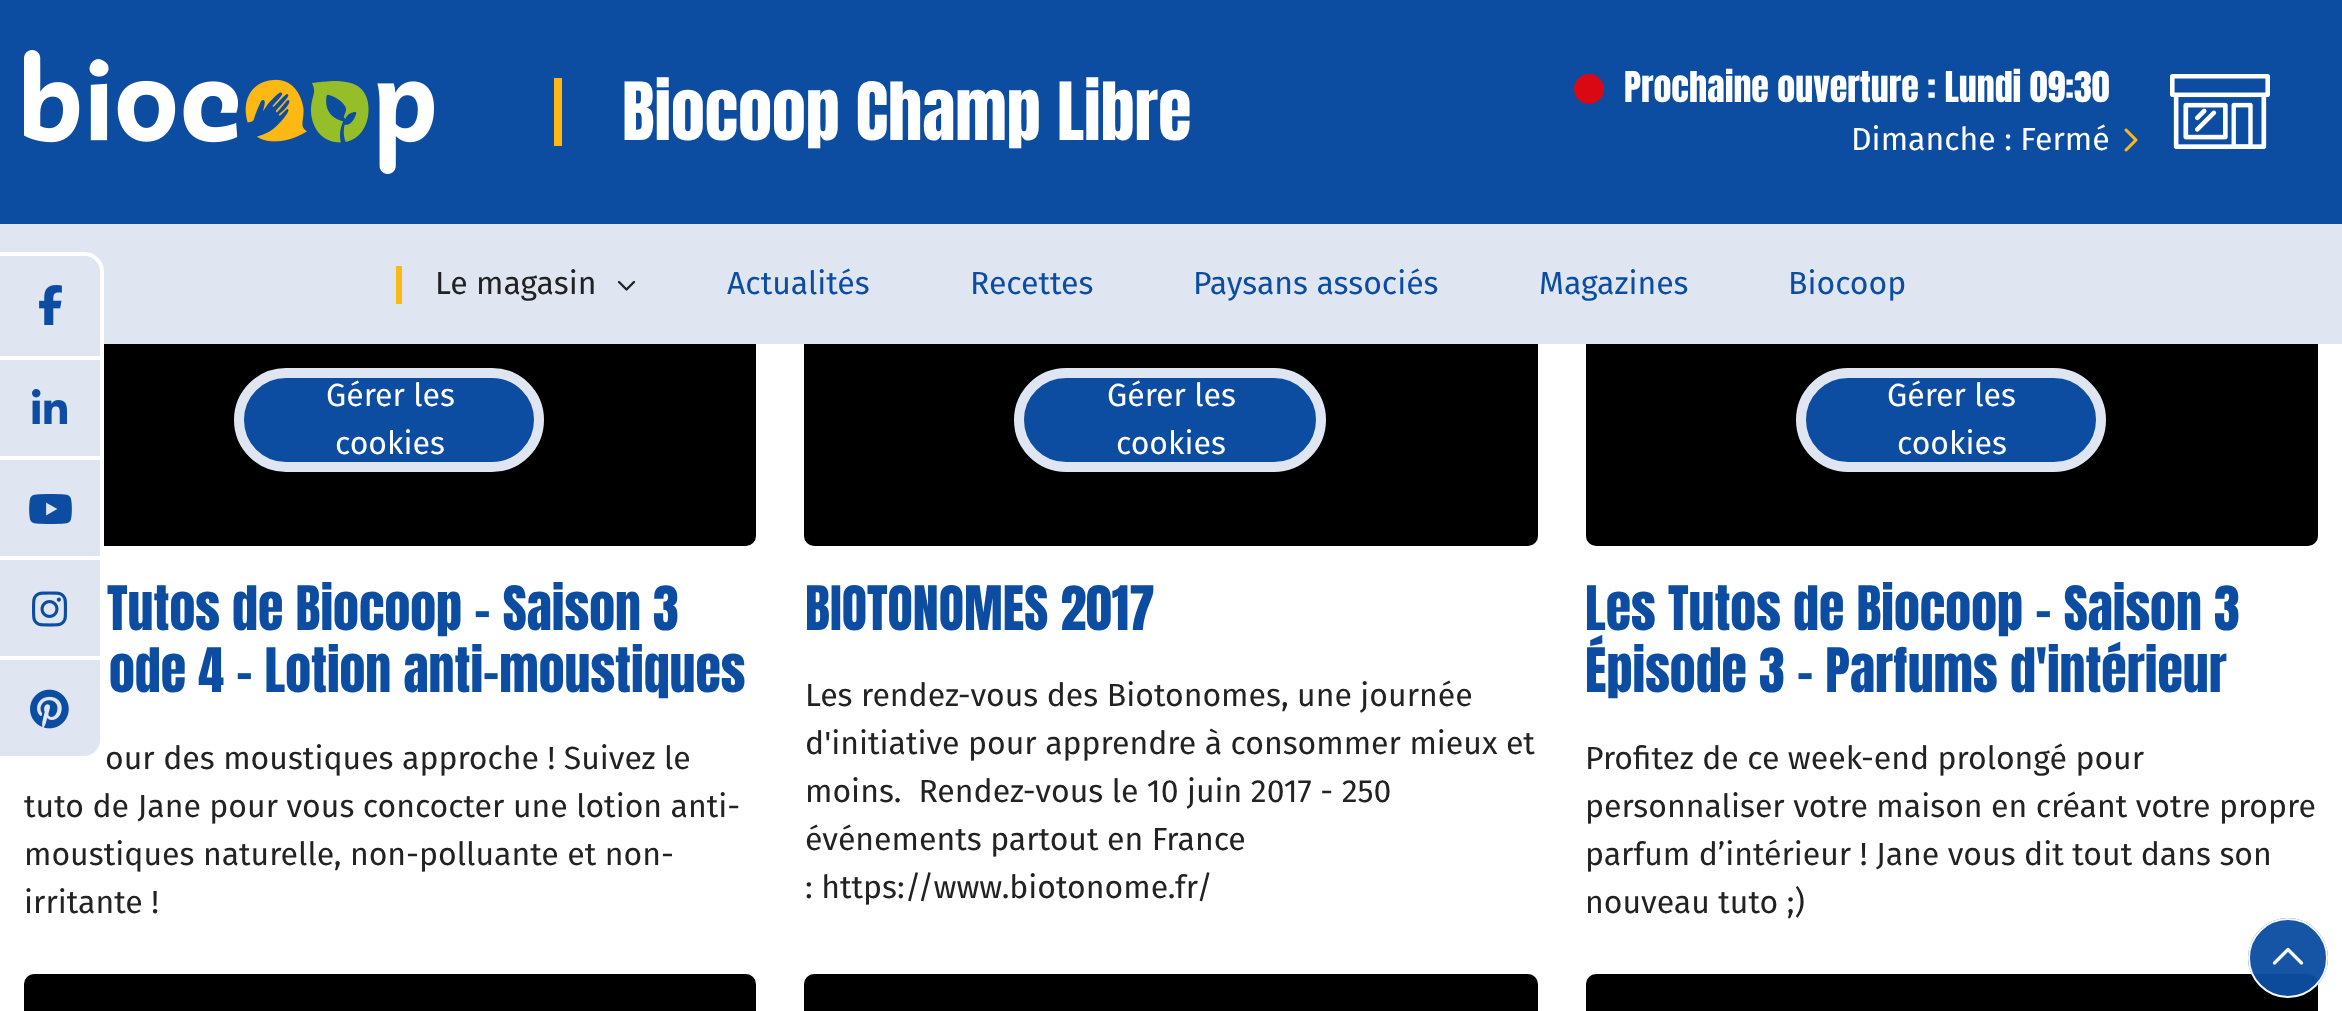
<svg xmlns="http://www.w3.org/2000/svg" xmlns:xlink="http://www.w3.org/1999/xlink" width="2342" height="1011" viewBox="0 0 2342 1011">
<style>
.cls-1{font:68px Anton;fill:#ffffff}
.cls-2{font:36px Anton;fill:#ffffff}
.cls-3{font:32px Fira Sans;fill:#ffffff}
.cls-4{font:32px Fira Sans;fill:#222222}
.cls-5{font:32px Fira Sans;fill:#0c4da2}
.cls-6{font:52px Anton;fill:#0c4da2}
</style>
<rect width="100%" height="100%" fill="#ffffff"/>
<rect fill="#000000" x="24" y="134" width="732" height="412" rx="10"/>
<rect fill="#000000" x="804" y="134" width="734" height="412" rx="10"/>
<rect fill="#000000" x="1586" y="134" width="732" height="412" rx="10"/>
<rect fill="#0c4da2" x="0" y="0" width="2342" height="224"/>
<image xlink:href="image0.png" x="24" y="50" width="410" height="124"/>
<rect fill="#fdb813" x="554" y="78" width="8" height="68"/>
<circle fill="#da0812" cx="1589" cy="89" r="15"/>
<image xlink:href="image1.png" x="2170" y="74" width="100" height="75"/>
<image xlink:href="image2.png" x="2124" y="128" width="14" height="24"/>
<rect fill="#dfe5f1" x="0" y="224" width="2342" height="120"/>
<rect fill="#fdb813" x="396" y="266" width="6" height="38"/>
<image xlink:href="image3.png" x="617" y="280" width="19" height="11"/>
<rect fill="#000000" x="1586" y="974" width="732" height="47" rx="10"/>
<circle fill="#0c4da2" fill-opacity="0.96" cx="2288" cy="958" r="40"/>
<circle fill="none" stroke="#ffffff" stroke-opacity="0.96" stroke-width="2" cx="2288" cy="958" r="39"/>
<image xlink:href="image4.png" x="2272" y="947" width="32" height="18"/>
<path fill="none" stroke="#ffffff" stroke-width="4" d="M-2 254H84C94 254 102 262 102 272V740C102 750 94 758 84 758H-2Z"/>
<path fill="#dfe5f1" d="M0 256H84C93 256 100 263 100 272V356H0Z"/>
<image xlink:href="image5.png" x="39" y="285" width="23" height="40"/>
<rect fill="#dfe5f1" x="0" y="360" width="100" height="96"/>
<rect fill="#ffffff" x="24" y="356" width="76" height="4"/>
<image xlink:href="image6.png" x="32" y="389" width="35" height="35"/>
<rect fill="#dfe5f1" x="0" y="460" width="100" height="96"/>
<rect fill="#ffffff" x="24" y="456" width="76" height="4"/>
<image xlink:href="image7.png" x="29" y="494" width="43" height="30"/>
<rect fill="#dfe5f1" x="0" y="560" width="100" height="96"/>
<image xlink:href="image8.png" x="32" y="591" width="35" height="36"/>
<path fill="#dfe5f1" d="M0 660H100V740C100 749 93 756 84 756H0Z"/>
<image xlink:href="image9.png" x="30" y="689" width="39" height="40"/>
<rect fill="#0c4da2" x="236" y="370" width="306" height="100" rx="50"/>
<rect fill="none" stroke="#dfe5f1" stroke-width="10" x="239" y="373" width="300" height="94" rx="47"/>
<rect fill="#0c4da2" x="1016" y="370" width="308" height="100" rx="50"/>
<rect fill="none" stroke="#dfe5f1" stroke-width="10" x="1019" y="373" width="302" height="94" rx="47"/>
<rect fill="#0c4da2" x="1798" y="370" width="306" height="100" rx="50"/>
<rect fill="none" stroke="#dfe5f1" stroke-width="10" x="1801" y="373" width="300" height="94" rx="47"/>
<rect fill="#000000" x="24" y="974" width="732" height="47" rx="10"/>
<rect fill="#000000" x="804" y="974" width="734" height="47" rx="10"/>
<text class="cls-1" x="622" y="140">Biocoop Champ Libre</text>
<text class="cls-2" x="1624" y="102">Prochaine ouverture : Lundi 09:30</text>
<text class="cls-3" x="1851" y="150">Dimanche : Fermé</text>
<text class="cls-4" x="435" y="294">Le magasin</text>
<text class="cls-5" x="727" y="294">Actualités</text>
<text class="cls-5" x="970" y="294">Recettes</text>
<text class="cls-5" x="1193" y="294">Paysans associés</text>
<text class="cls-5" x="1539" y="294">Magazines</text>
<text class="cls-5" x="1788" y="294">Biocoop</text>
<text class="cls-3" x="326" y="406">Gérer les</text>
<text class="cls-3" x="335" y="454">cookies</text>
<text class="cls-6" x="107" y="630">Tutos de Biocoop - Saison 3</text>
<text class="cls-6" x="109" y="692">ode 4 - Lotion anti-moustiques</text>
<text class="cls-4" x="105" y="769">our des moustiques approche ! Suivez le</text>
<text class="cls-4"><tspan x="24" y="817">tuto de Jane pour vous concocter une lotion anti-</tspan><tspan x="24" y="865">moustiques naturelle, non-polluante et non-</tspan><tspan x="24" y="913">irritante !</tspan></text>
<text class="cls-3" x="1107" y="406">Gérer les</text>
<text class="cls-3" x="1116" y="454">cookies</text>
<text class="cls-6" x="805" y="630">BIOTONOMES 2017</text>
<text class="cls-4" xml:space="preserve"><tspan x="805" y="706">Les rendez-vous des Biotonomes, une journée</tspan><tspan x="805" y="754">d'initiative pour apprendre à consommer mieux et</tspan><tspan x="805" y="802">moins.  Rendez-vous le 10 juin 2017 - 250</tspan><tspan x="805" y="850">événements partout en France</tspan><tspan x="805" y="898">: https://www.biotonome.fr/</tspan></text>
<text class="cls-3" x="1887" y="406">Gérer les</text>
<text class="cls-3" x="1897" y="454">cookies</text>
<text class="cls-6"><tspan x="1585" y="630">Les Tutos de Biocoop - Saison 3</tspan><tspan x="1585" y="692">Épisode 3 - Parfums d'intérieur</tspan></text>
<text class="cls-4"><tspan x="1585" y="769">Profitez de ce week-end prolongé pour</tspan><tspan x="1585" y="817">personnaliser votre maison en créant votre propre</tspan><tspan x="1585" y="865">parfum d’intérieur ! Jane vous dit tout dans son</tspan><tspan x="1585" y="913">nouveau tuto ;)</tspan></text>
</svg>
